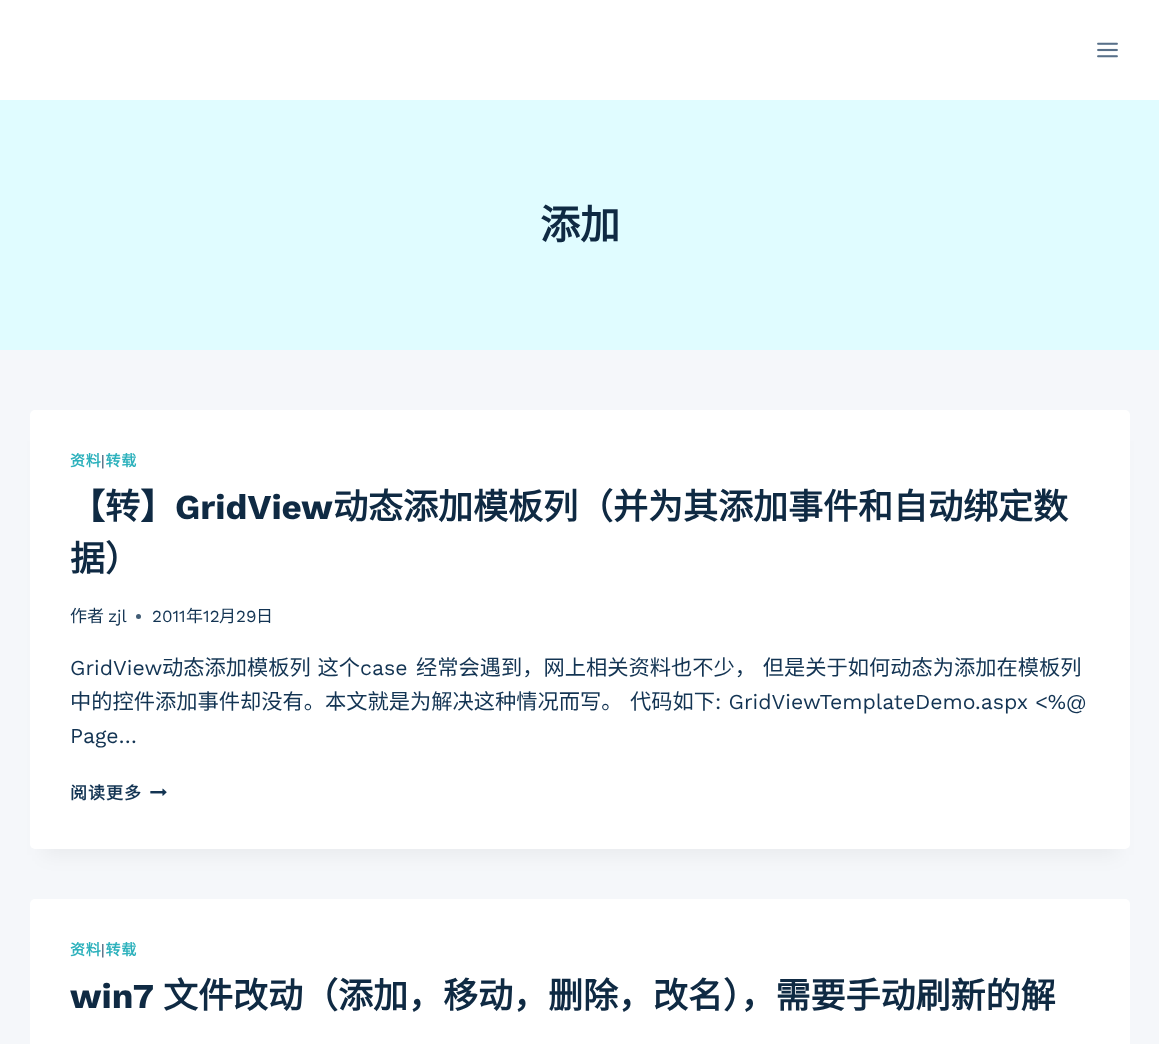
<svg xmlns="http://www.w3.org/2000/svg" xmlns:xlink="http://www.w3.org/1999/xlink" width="1159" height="1044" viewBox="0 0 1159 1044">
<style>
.cls-1{font:bold 40px Noto Sans CJK SC;fill:#0f2a43}
.cls-2{font:bold 15px Noto Sans CJK SC;letter-spacing:0.75px;fill:#2cb1bc}
.cls-3{font:15px Work Sans;letter-spacing:0.75px;fill:#133453}
.cls-4{font:bold 35px Noto Sans CJK SC;fill:#0f2a43}
.cls-5{font:bold 35px Work Sans;fill:#0f2a43}
.cls-6{font:17px Noto Sans CJK SC;fill:#133453}
.cls-7{font:17px Work Sans;fill:#133453}
.cls-8{font:21.25px Work Sans;fill:#133453}
.cls-9{font:21.25px Noto Sans CJK SC;fill:#133453}
.cls-10{font:bold 17px Noto Sans CJK SC;letter-spacing:1px;fill:#133453}
</style>
<rect width="100%" height="100%" fill="#f5f7fa"/>
<rect fill="#ffffff" x="0" y="0" width="1159" height="100"/>
<image xlink:href="image0.png" x="1097" y="42" width="21" height="16"/>
<rect fill="#e0fcff" x="0" y="100" width="1159" height="250"/>
<rect fill="#000000" fill-opacity="0.05" filter="blur(9.5px)" x="43" y="441" width="1075" height="414"/>
<rect fill="#ffffff" x="30" y="410" width="1100" height="439" rx="5"/>
<circle fill="#425d75" cx="138.5" cy="616.5" r="2.5"/>
<image xlink:href="image1.png" x="150" y="788" width="17" height="8"/>
<rect fill="#ffffff" x="30" y="899" width="1100" height="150" rx="5"/>
<text class="cls-1" x="540" y="239">添加</text>
<text class="cls-2" x="70" y="466">资料 转载</text>
<text class="cls-3" x="101" y="466">|</text>
<text class="cls-4" x="70" y="519">【转】</text>
<text class="cls-5" x="175" y="519">GridView</text>
<text class="cls-4" x="333" y="519">动态添加模板列（并为其添加事件和自动绑定数</text>
<text class="cls-4" x="70" y="571">据）</text>
<text class="cls-6" x="70" y="622">作者</text>
<text class="cls-7" x="108" y="622">zjl</text>
<text class="cls-7" x="152" y="622">2011</text>
<text class="cls-6" x="186" y="622">年</text>
<text class="cls-7" x="203" y="622">12</text>
<text class="cls-6" x="219" y="622">月</text>
<text class="cls-7" x="236" y="622">29</text>
<text class="cls-6" x="256" y="622">日</text>
<text class="cls-8" x="70" y="675">GridView</text>
<text class="cls-9" x="162" y="675" word-spacing="2">动态添加模板列 这个</text>
<text class="cls-8" x="360" y="675">case</text>
<text class="cls-9" x="416" y="675" word-spacing="2">经常会遇到，网上相关资料也不少， 但是关于如何动态为添加在模板列</text>
<text class="cls-9" x="70" y="709">中的控件添加事件却没有。本文就是为解决这种情况而写。</text>
<text class="cls-9" x="630" y="709">代码如下</text>
<text class="cls-8" x="715" y="709">: GridViewTemplateDemo.aspx &lt;%@</text>
<text class="cls-8" x="70" y="743">Page…</text>
<text class="cls-10" x="70" y="799">阅读更多</text>
<text class="cls-2" x="70" y="955">资料 转载</text>
<text class="cls-3" x="101" y="955">|</text>
<text class="cls-5" x="70" y="1008">win7</text>
<text class="cls-4" x="163" y="1008">文件改动（添加，移动，删除，改名），需要手动刷新的解</text>
</svg>
